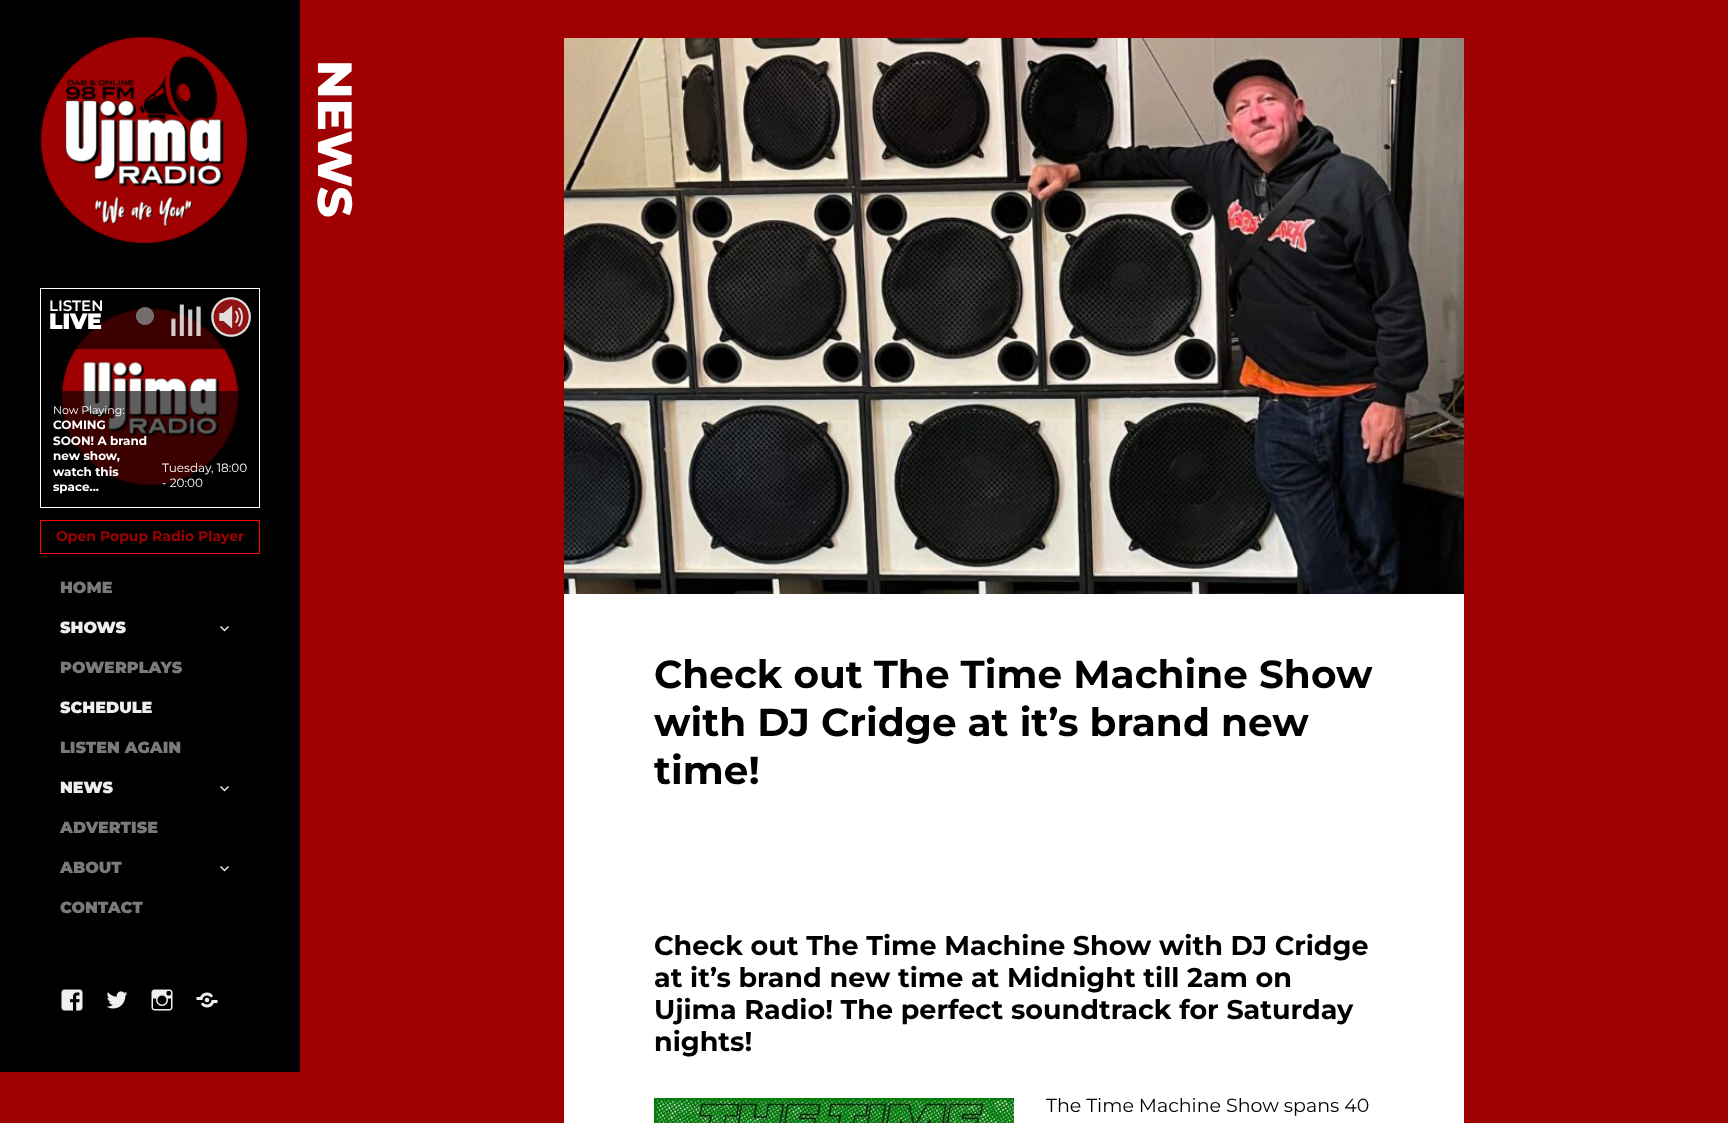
<svg xmlns="http://www.w3.org/2000/svg" xmlns:xlink="http://www.w3.org/1999/xlink" width="1728" height="1123" viewBox="0 0 1728 1123">
<style>
.cls-1{font:600 15px Montserrat;fill:#ffffff}
.cls-2{font:900 22px Montserrat;fill:#ffffff}
.cls-3{font:11px Montserrat;fill:#ffffff}
.cls-4{font:bold 12px Montserrat;fill:#ffffff}
.cls-5{font:12px Montserrat;fill:#ffffff}
.cls-6{font:bold 14px Montserrat;fill:#9f0001}
.cls-7{font:900 16px Montserrat;fill:#7a7a7a}
.cls-8{font:900 16px Montserrat;fill:#eeeeee}
.cls-9{font:800 48px Montserrat;fill:#ffffff}
.cls-10{font:bold 39px Montserrat;fill:#000000}
.cls-11{font:bold 27px Montserrat;fill:#000000}
.cls-12{font:19px Montserrat;fill:#000000}
</style>
<rect width="100%" height="100%" fill="#9f0001"/>
<rect fill="#000000" x="0" y="0" width="300" height="1072"/>
<image xlink:href="image0.png" x="40" y="36" width="208" height="208"/>
<rect fill="none" stroke="#ffffff" x="40.5" y="288.5" width="219" height="219"/>
<image xlink:href="image2.png" x="61" y="308" width="178" height="178"/>
<rect fill="#000000" fill-opacity="0.63" x="75" y="308" width="150" height="41"/>
<circle fill="#808080" fill-opacity="0.85" cx="145" cy="316" r="9"/>
<circle fill="none" stroke="#808080" stroke-opacity="0.42" cx="145" cy="316" r="8.5"/>
<circle fill="#606060" cx="231" cy="317" r="20"/>
<image xlink:href="image1.png" x="211" y="297" width="40" height="40"/>
<rect fill="#000000" fill-opacity="0.63" x="61" y="391" width="178" height="95"/>
<image xlink:href="image3.png" x="171" y="303" width="30" height="33"/>
<rect fill="none" stroke="#ff0000" x="40.5" y="520.5" width="219" height="33"/>
<image xlink:href="image4.png" x="220" y="626" width="9" height="6"/>
<image xlink:href="image4.png" x="220" y="786" width="9" height="6"/>
<image xlink:href="image4.png" x="220" y="866" width="9" height="6"/>
<image xlink:href="image5.png" x="61" y="989" width="22" height="22"/>
<image xlink:href="image6.png" x="106" y="991" width="22" height="18"/>
<image xlink:href="image7.png" x="151" y="989" width="22" height="22"/>
<image xlink:href="image8.png" x="196" y="992" width="22" height="16"/>
<rect fill="#ffffff" x="564" y="594" width="900" height="529"/>
<image xlink:href="image9.png" x="564" y="38" width="900" height="556"/>
<image xlink:href="image10.png" x="654" y="1098" width="360" height="25"/>
<text class="cls-1" x="49" y="311">LISTEN</text>
<text class="cls-2" x="49" y="329">LIVE</text>
<text class="cls-3" x="53" y="414">Now Playing:</text>
<text class="cls-4"><tspan x="53" y="429">COMING</tspan><tspan x="53" y="445">SOON! A brand</tspan><tspan x="53" y="460">new show,</tspan><tspan x="53" y="476">watch this</tspan><tspan x="53" y="491">space...</tspan></text>
<text class="cls-5"><tspan x="162" y="472">Tuesday, 18:00</tspan><tspan x="162" y="487">- 20:00</tspan></text>
<text class="cls-6" x="56" y="541">Open Popup Radio Player</text>
<text class="cls-7" x="60" y="593">HOME</text>
<text class="cls-8" x="60" y="633">SHOWS</text>
<text class="cls-7" x="60" y="673">POWERPLAYS</text>
<text class="cls-8" x="60" y="713">SCHEDULE</text>
<text class="cls-7" x="60" y="753">LISTEN AGAIN</text>
<text class="cls-8" x="60" y="793">NEWS</text>
<text class="cls-7" x="60" y="833">ADVERTISE</text>
<text class="cls-7" x="60" y="873">ABOUT</text>
<text class="cls-7" x="60" y="913">CONTACT</text>
<text class="cls-9" x="318" y="60" transform="rotate(90 318 60)">NEWS</text>
<text class="cls-10"><tspan x="654" y="688">Check out The Time Machine Show</tspan><tspan x="654" y="736">with DJ Cridge at it’s brand new</tspan><tspan x="654" y="784">time!</tspan></text>
<text class="cls-11"><tspan x="654" y="955">Check out The Time Machine Show with DJ Cridge</tspan><tspan x="654" y="987">at it’s brand new time at Midnight till 2am on</tspan><tspan x="654" y="1019">Ujima Radio! The perfect soundtrack for Saturday</tspan><tspan x="654" y="1051">nights!</tspan></text>
<text class="cls-12" x="1046" y="1112">The Time Machine Show spans 40</text>
</svg>
